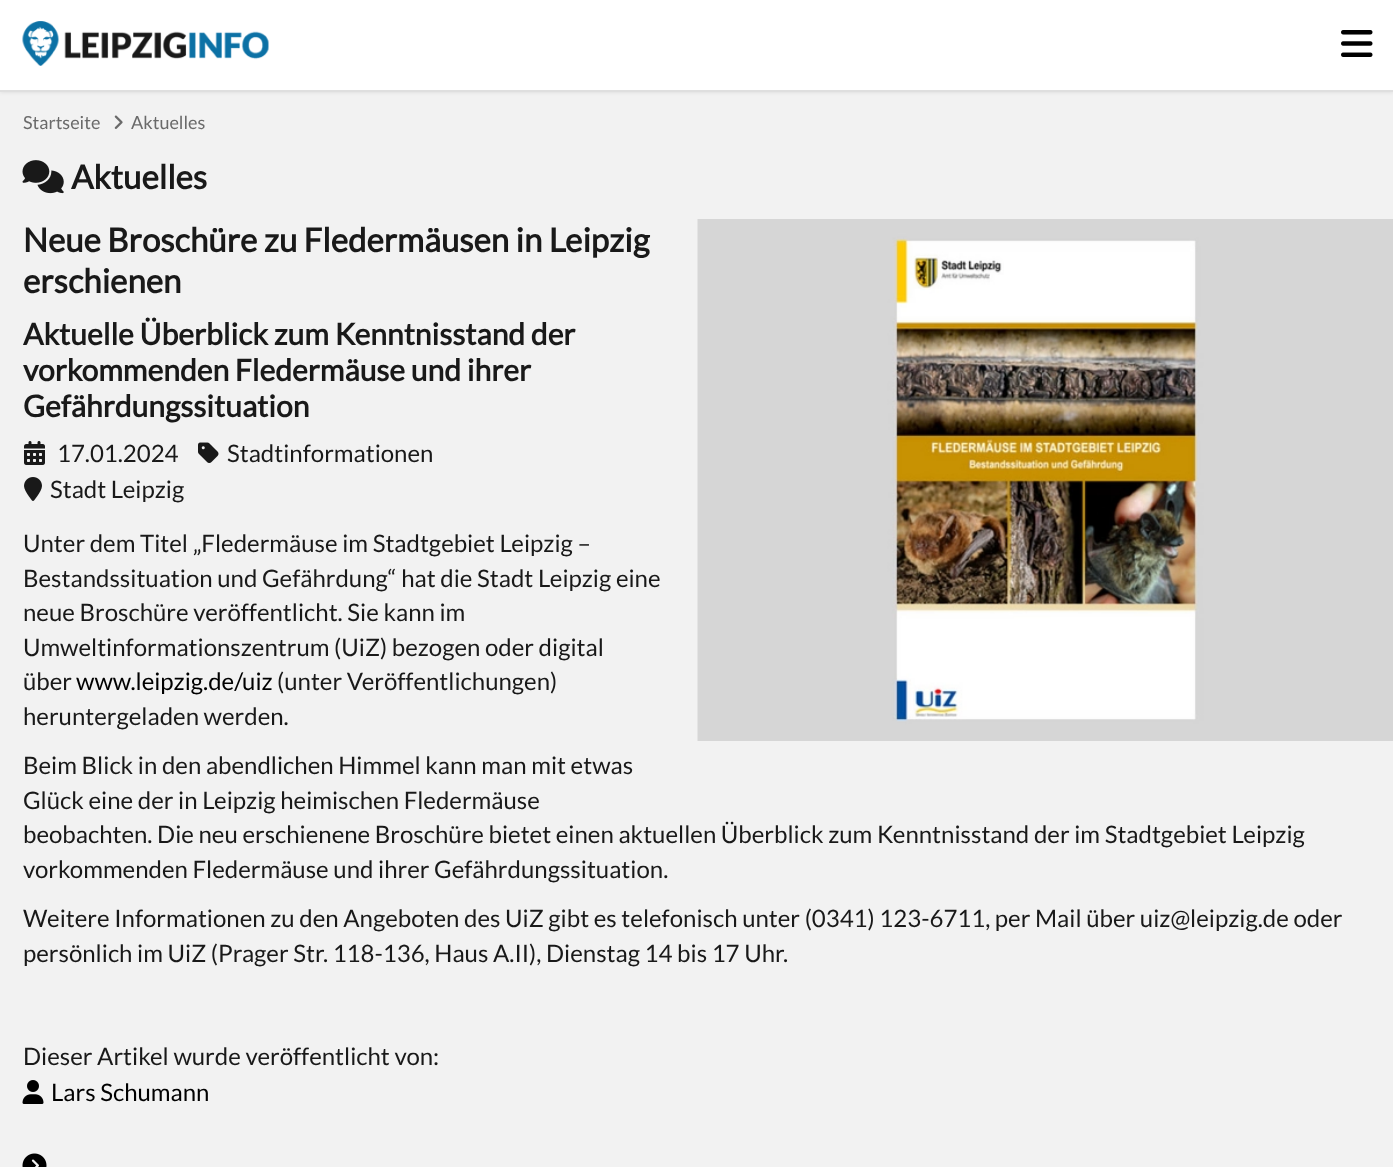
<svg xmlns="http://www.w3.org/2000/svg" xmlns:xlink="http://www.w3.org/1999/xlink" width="1393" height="1167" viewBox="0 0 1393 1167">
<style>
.cls-1{font:18px Lato;fill:#6a6a6a}
.cls-2{font:bold 33px Lato;fill:#191919}
.cls-3{font:bold 30px Lato;fill:#191919}
.cls-4{font:24px Lato;fill:#191919}
.cls-5{font:24px Lato;fill:#000000}
</style>
<rect width="100%" height="100%" fill="#f2f2f2"/>
<rect fill="#000000" fill-opacity="0.1" filter="blur(2px)" x="0" y="0" width="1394" height="92"/>
<rect fill="#ffffff" x="0" y="0" width="1393" height="90"/>
<rect fill="#dfdfdf" x="0" y="90" width="1393" height="2"/>
<image xlink:href="image0.png" x="22" y="21" width="247" height="45"/>
<image xlink:href="image1.png" x="1341" y="30" width="32" height="27"/>
<image xlink:href="image2.png" x="114" y="115" width="9" height="14"/>
<image xlink:href="image3.png" x="22" y="160" width="42" height="34"/>
<image xlink:href="image4.png" x="697" y="219" width="696" height="522"/>
<image xlink:href="image5.png" x="24" y="441" width="21" height="24"/>
<image xlink:href="image6.png" x="198" y="442" width="21" height="21"/>
<image xlink:href="image7.png" x="24" y="477" width="18" height="24"/>
<image xlink:href="image8.png" x="22" y="1080" width="22" height="24"/>
<image xlink:href="image9.png" x="22" y="1153" width="25" height="14"/>
<text class="cls-1" x="23" y="129">Startseite</text>
<text class="cls-1" x="131" y="129">Aktuelles</text>
<text class="cls-2" x="71" y="189">Aktuelles</text>
<text class="cls-2"><tspan x="23" y="252">Neue Broschüre zu Fledermäusen in Leipzig</tspan><tspan x="23" y="293">erschienen</tspan></text>
<text class="cls-3"><tspan x="23" y="345">Aktuelle Überblick zum Kenntnisstand der</tspan><tspan x="23" y="381">vorkommenden Fledermäuse und ihrer</tspan><tspan x="23" y="417">Gefährdungssituation</tspan></text>
<text class="cls-4" x="57" y="462">17.01.2024</text>
<text class="cls-4" x="227" y="462">Stadtinformationen</text>
<text class="cls-4" x="50" y="498">Stadt Leipzig</text>
<text class="cls-4"><tspan x="23" y="552">Unter dem Titel „Fledermäuse im Stadtgebiet Leipzig –</tspan><tspan x="23" y="587">Bestandssituation und Gefährdung“ hat die Stadt Leipzig eine</tspan><tspan x="23" y="621">neue Broschüre veröffentlicht. Sie kann im</tspan><tspan x="23" y="656">Umweltinformationszentrum (UiZ) bezogen oder digital</tspan><tspan x="23" y="690">über</tspan></text>
<text class="cls-5" x="76" y="690">www.leipzig.de/uiz</text>
<text class="cls-4" x="277" y="690">(unter Veröffentlichungen)</text>
<text class="cls-4" x="23" y="725">heruntergeladen werden.</text>
<text class="cls-4"><tspan x="23" y="774">Beim Blick in den abendlichen Himmel kann man mit etwas</tspan><tspan x="23" y="809">Glück eine der in Leipzig heimischen Fledermäuse</tspan><tspan x="23" y="843">beobachten. Die neu erschienene Broschüre bietet einen aktuellen Überblick zum Kenntnisstand der im Stadtgebiet Leipzig</tspan><tspan x="23" y="878">vorkommenden Fledermäuse und ihrer Gefährdungssituation.</tspan></text>
<text class="cls-4"><tspan x="23" y="927">Weitere Informationen zu den Angeboten des UiZ gibt es telefonisch unter (0341) 123-6711, per Mail über uiz@leipzig.de oder</tspan><tspan x="23" y="962">persönlich im UiZ (Prager Str. 118-136, Haus A.II), Dienstag 14 bis 17 Uhr.</tspan></text>
<text class="cls-4" x="23" y="1065">Dieser Artikel wurde veröffentlicht von:</text>
<text class="cls-5" x="51" y="1101">Lars Schumann</text>
</svg>
